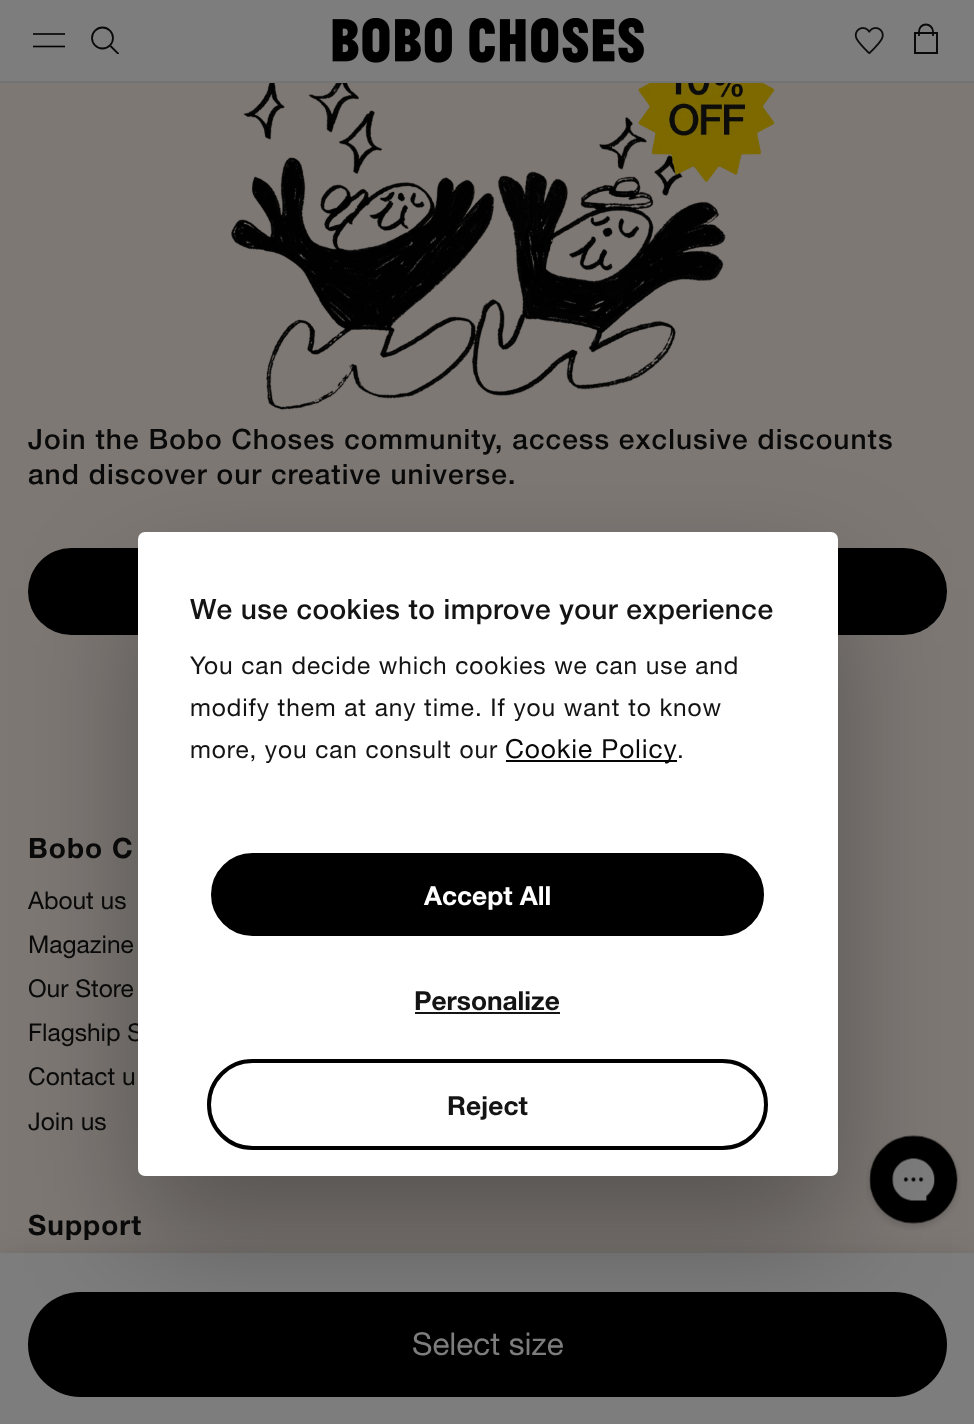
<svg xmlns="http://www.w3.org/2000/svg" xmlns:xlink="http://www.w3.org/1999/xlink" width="974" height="1424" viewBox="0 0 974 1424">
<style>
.cls-1{font:500 28px Helvetica Neue;letter-spacing:1.05px;fill:#090909}
.cls-2{font:bold 28px Helvetica Neue;letter-spacing:1.05px;fill:#090909}
.cls-3{font:24.5px Helvetica Neue;fill:#090909}
.cls-4{font:500 28px Helvetica Neue;letter-spacing:0.45px;fill:#141414}
.cls-5{font:24.5px Helvetica Neue;letter-spacing:0.9px;fill:#141414}
.cls-6{font:26.25px Helvetica Neue;letter-spacing:0.9px;fill:#090909}
.cls-7{font:bold 26.25px Helvetica Neue;fill:#ffffff}
.cls-8{font:bold 26.25px Helvetica Neue;fill:#141414}
.cls-9{font:31.5px Helvetica Neue;fill:#7d7d7d}
</style>
<defs>
<clipPath id="clip1"><rect x="91" y="26" width="28" height="28"/></clipPath>
</defs>
<rect width="100%" height="100%" fill="#7d7874"/>
<rect fill="#7d7d7d" x="0" y="0" width="974" height="81"/>
<rect fill="#737373" x="0" y="81" width="974" height="2"/>
<rect fill="#1a1a1a" x="33" y="33" width="32" height="2"/>
<path fill="none" stroke="#010101" stroke-width="1.6" d="M33 46.5H65"/>
<g clip-path="url(#clip1)">
<path fill="none" stroke="#090909" stroke-width="1.8" d="M110.5 46L119 54.5"/>
</g>
<circle fill="none" stroke="#090909" stroke-width="1.8" cx="102.5" cy="38" r="10.5"/>
<image xlink:href="image0.png" x="332" y="18" width="312" height="45"/>
<image xlink:href="image1.png" x="854" y="27" width="30" height="28"/>
<rect fill="none" stroke="#090909" stroke-width="2" x="915" y="33" width="22" height="20"/>
<path fill="none" stroke="#090909" stroke-width="1.8" d="M919 36V31.5C919 27.5 922 24.5 926 24.5C929.5 24.5 933 27.5 933 31.5V36"/>
<image xlink:href="image2.png" x="231" y="83" width="544" height="327"/>
<rect fill="#000000" x="28" y="548" width="919" height="87" rx="43.5"/>
<rect fill="#1e1e1e" fill-opacity="0.24" filter="blur(14px)" x="0" y="1260" width="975" height="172"/>
<image xlink:href="image3.png" x="866" y="1135" width="95" height="95"/>
<rect fill="#7d7d7d" x="0" y="1253" width="974" height="171"/>
<rect fill="#000000" x="28" y="1292" width="919" height="105" rx="52.5"/>
<rect fill="#000000" fill-opacity="0.3" filter="blur(59.5px)" x="138" y="588" width="700" height="644" rx="7"/>
<text class="cls-1"><tspan x="28" y="449">Join the Bobo Choses community, access exclusive discounts</tspan><tspan x="28" y="484">and discover our creative universe.</tspan></text>
<text class="cls-2" x="28" y="858">Bobo C</text>
<text class="cls-3"><tspan x="28" y="909">About us</tspan><tspan x="28" y="953">Magazine</tspan><tspan x="28" y="997">Our Store</tspan><tspan x="28" y="1041">Flagship S</tspan><tspan x="28" y="1085">Contact u</tspan><tspan x="28" y="1130">Join us</tspan></text>
<text class="cls-2" x="28" y="1235">Support</text>
<rect fill="#ffffff" x="138" y="532" width="700" height="644" rx="7"/>
<text class="cls-4" x="190" y="619">We use cookies to improve your experience</text>
<text class="cls-5"><tspan x="190" y="674">You can decide which cookies we can use and</tspan><tspan x="190" y="716">modify them at any time. If you want to know</tspan><tspan x="190" y="758">more, you can consult our</tspan></text>
<rect fill="#050505" x="506" y="760" width="171" height="2"/>
<text class="cls-6" x="505" y="758">Cookie Policy</text>
<text class="cls-5" x="677" y="758">.</text>
<rect fill="#000000" stroke="#ffffff" stroke-width="4" x="209" y="851" width="557" height="87" rx="43.5"/>
<text class="cls-7" x="424" y="905">Accept All</text>
<text class="cls-8" x="414" y="1010">Personalize</text>
<rect fill="#141414" x="415" y="1012" width="145" height="2"/>
<rect fill="none" stroke="#000000" stroke-width="4" x="209" y="1061" width="557" height="87" rx="43.5"/>
<text class="cls-8" x="447" y="1115">Reject</text>
<text class="cls-9" x="412" y="1355">Select size</text>
</svg>
